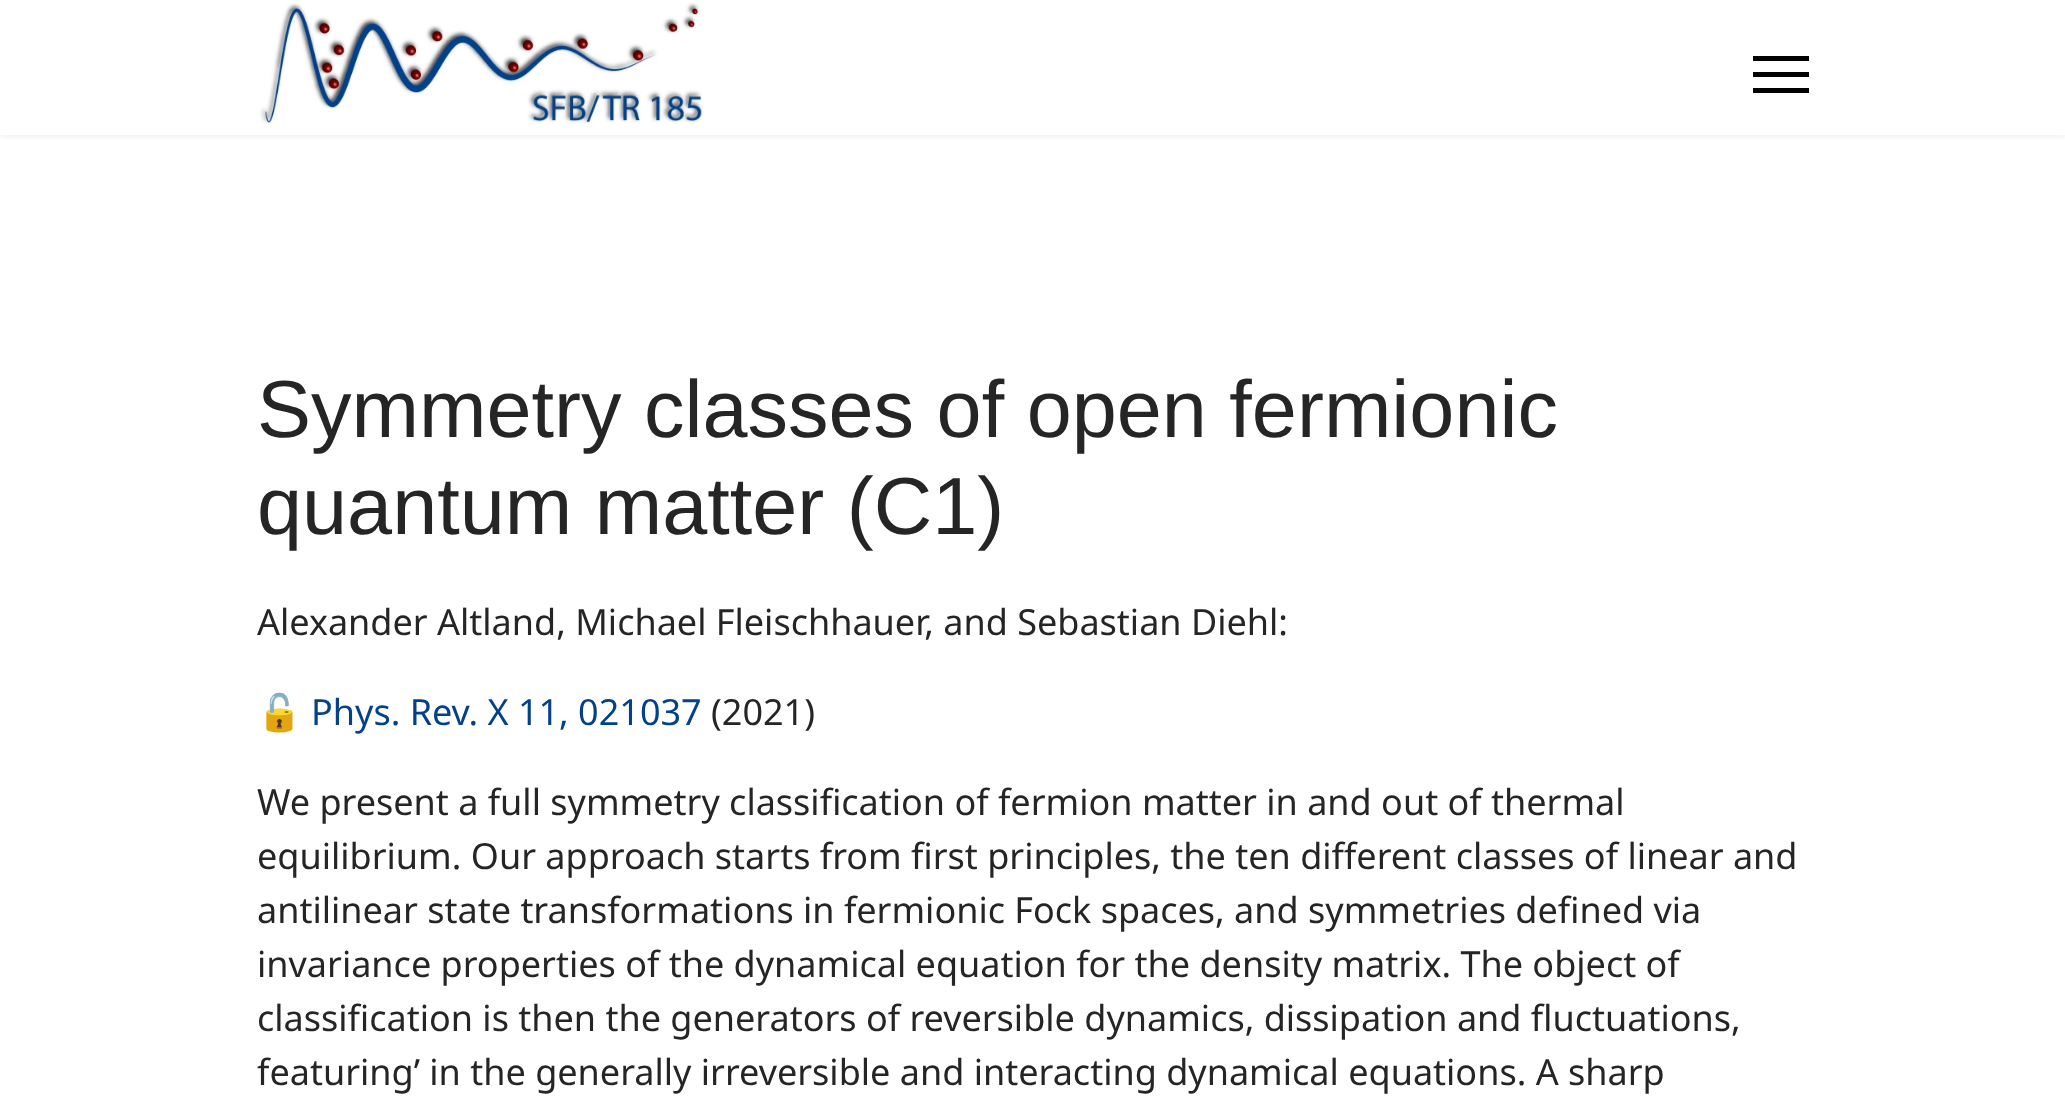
<svg xmlns="http://www.w3.org/2000/svg" xmlns:xlink="http://www.w3.org/1999/xlink" width="2065" height="1096" viewBox="0 0 2065 1096">
<style>
.cls-1{font:81px Liberation Sans;fill:#252525}
.cls-2{font:36px Noto Sans;fill:#252525}
.cls-3{font:36px Noto Color Emoji;fill:#252525}
.cls-4{font:36px Noto Sans;fill:#034289}
</style>
<defs>
<clipPath id="clip1"><rect x="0" y="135" width="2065" height="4"/></clipPath>
</defs>
<rect width="100%" height="100%" fill="#ffffff"/>
<g clip-path="url(#clip1)">
<rect fill="#000000" fill-opacity="0.1" filter="blur(4.5px)" x="0" y="0" width="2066" height="135"/>
</g>
<image xlink:href="image0.png" x="260" y="3" width="443" height="121"/>
<rect fill="#000000" x="1753" y="56" width="56" height="5"/>
<rect fill="#000000" x="1753" y="72" width="56" height="5"/>
<rect fill="#000000" x="1753" y="88" width="56" height="5"/>
<text class="cls-1"><tspan x="257" y="437">Symmetry classes of open fermionic</tspan><tspan x="257" y="534">quantum matter (C1)</tspan></text>
<text class="cls-2" x="257" y="635">Alexander Altland, Michael Fleischhauer, and Sebastian Diehl:</text>
<text class="cls-3" x="257" y="725">🔓</text>
<text class="cls-4" x="311" y="725">Phys. Rev. X 11, 021037</text>
<text class="cls-2" x="711" y="725">(2021)</text>
<text class="cls-2"><tspan x="257" y="815">We present a full symmetry classification of fermion matter in and out of thermal</tspan><tspan x="257" y="869">equilibrium. Our approach starts from first principles, the ten different classes of linear and</tspan><tspan x="257" y="923">antilinear state transformations in fermionic Fock spaces, and symmetries defined via</tspan><tspan x="257" y="977">invariance properties of the dynamical equation for the density matrix. The object of</tspan><tspan x="257" y="1031">classification is then the generators of reversible dynamics, dissipation and fluctuations,</tspan><tspan x="257" y="1085">featuring’ in the generally irreversible and interacting dynamical equations. A sharp</tspan></text>
</svg>
